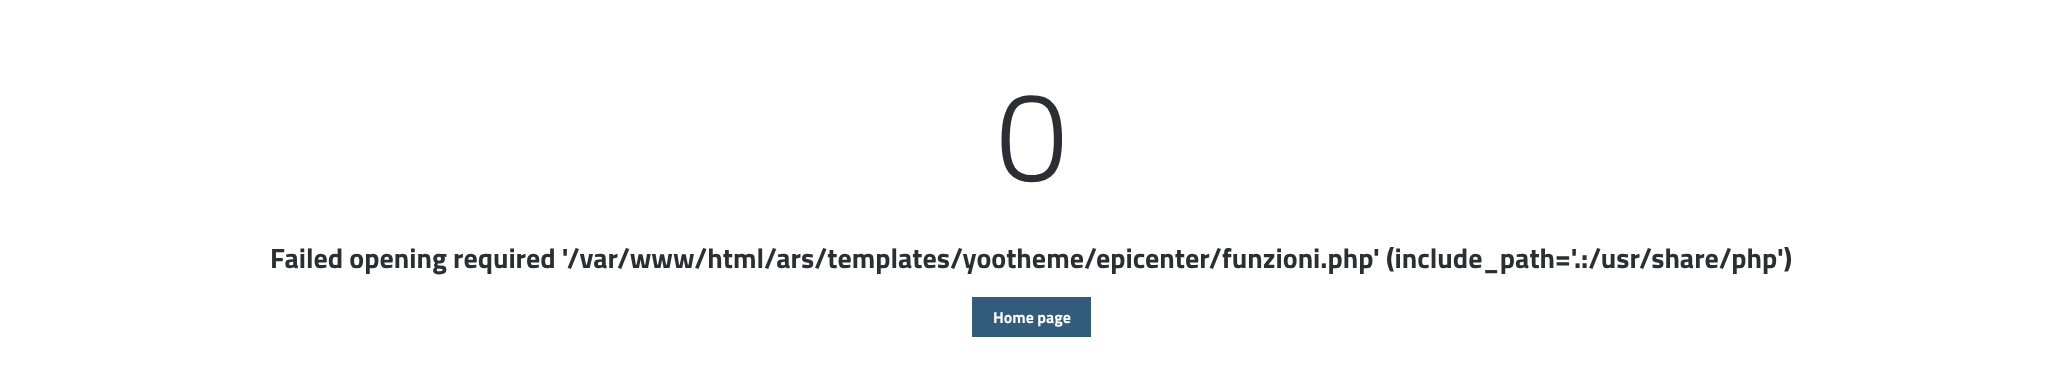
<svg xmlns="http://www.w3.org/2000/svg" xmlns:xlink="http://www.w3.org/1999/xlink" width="2063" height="381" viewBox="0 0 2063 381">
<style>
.cls-1{font:300 128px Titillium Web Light;fill:#2d2e33}
.cls-2{font:bold 28px Titillium Web;fill:#2d2e33}
.cls-3{font:bold 16px Titillium Web;fill:#ffffff}
</style>
<rect width="100%" height="100%" fill="#ffffff"/>
<rect fill="#325c7b" x="972" y="297" width="119" height="40"/>
<text class="cls-1" x="996" y="181">0</text>
<text class="cls-2" x="270" y="268">Failed opening required '/var/www/html/ars/templates/yootheme/epicenter/funzioni.php' (include_path='.:/usr/share/php')</text>
<text class="cls-3" x="993" y="323">Home page</text>
</svg>
